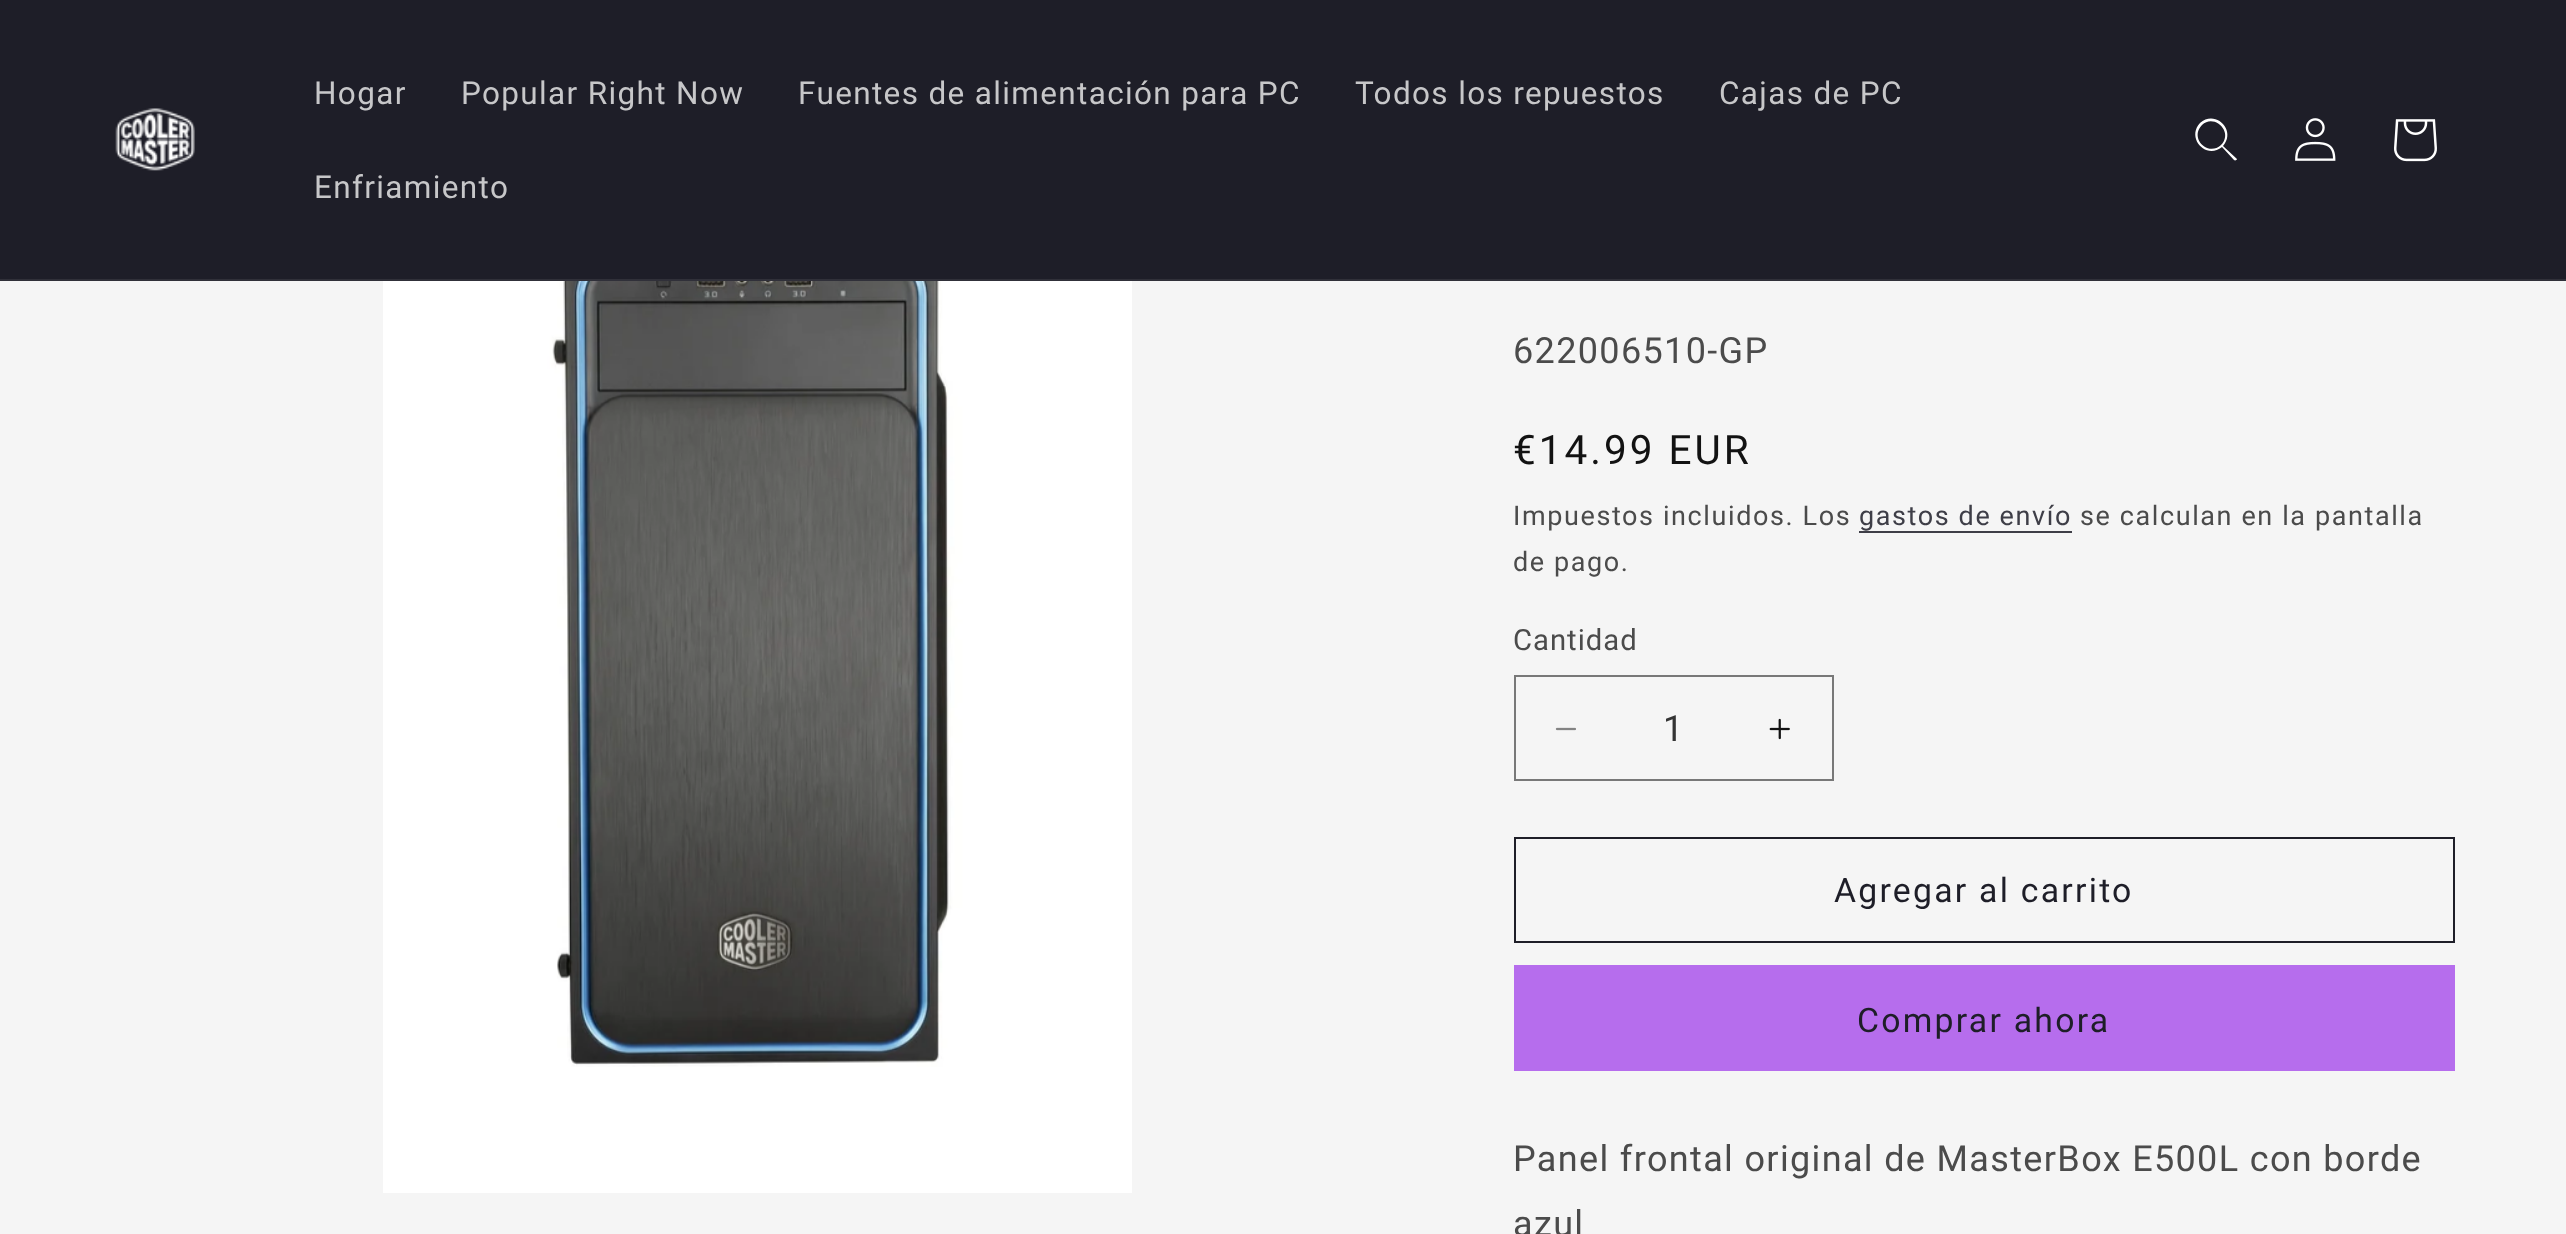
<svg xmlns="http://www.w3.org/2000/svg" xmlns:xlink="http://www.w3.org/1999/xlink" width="2566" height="1234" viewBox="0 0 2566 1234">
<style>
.cls-1{font:31.5px Roboto;letter-spacing:1.35px;fill:#c7c7c9}
.cls-2{font:36px Roboto;letter-spacing:1.35px;fill:#4b4b4b}
.cls-3{font:40.5px Roboto;letter-spacing:3px;fill:#121212}
.cls-4{font:27px Roboto;letter-spacing:1.6px;fill:#4b4b4b}
.cls-5{font:27px Roboto;letter-spacing:1.6px;fill:#3e3e47}
.cls-6{font:29.25px Roboto;letter-spacing:1px;fill:#4b4b4b}
.cls-7{font:36px Roboto;fill:#343434}
.cls-8{font:33.75px Roboto;letter-spacing:2.25px;fill:#1e1e28}
</style>
<rect width="100%" height="100%" fill="#f5f5f5"/>
<rect fill="#1e1e28" x="0" y="0" width="2566" height="279"/>
<rect fill="#303039" x="0" y="279" width="2566" height="2"/>
<image xlink:href="image0.png" x="115" y="108" width="80" height="63"/>
<path fill="#ffffff" fill-rule="evenodd" d="M2221 145C2208 157 2189 138 2202 125C2214 113 2234 132 2221 145M2222 147C2206 160 2186 138 2200 123C2215 109 2237 130 2223 146L2237 159C2237 160 2235 161 2234 160Z"/>
<image xlink:href="image1.png" x="2295" y="118" width="41" height="43"/>
<image xlink:href="image2.png" x="2394" y="119" width="43" height="43"/>
<rect fill="#ffffff" x="383" y="1067" width="749" height="126"/>
<image xlink:href="image3.png" x="383" y="281" width="749" height="786"/>
<rect fill="#3e3e47" x="1859" y="531" width="213" height="2"/>
<image xlink:href="image4.png" x="1555" y="727" width="21" height="4"/>
<image xlink:href="image5.png" x="1769" y="718" width="21" height="22"/>
<rect fill="none" stroke="#787878" stroke-width="2" x="1515" y="676" width="318" height="104"/>
<rect fill="none" stroke="#1e1e28" stroke-width="2" x="1515" y="838" width="939" height="104"/>
<rect fill="#b66ded" x="1514" y="965" width="941" height="106"/>
<text class="cls-1" x="314" y="104">Hogar</text>
<text class="cls-1" x="461" y="104">Popular Right Now</text>
<text class="cls-1" x="798" y="104">Fuentes de alimentación para PC</text>
<text class="cls-1" x="1355" y="104">Todos los repuestos</text>
<text class="cls-1" x="1719" y="104">Cajas de PC</text>
<text class="cls-1" x="314" y="198">Enfriamiento</text>
<text class="cls-2" x="1513" y="363">622006510-GP</text>
<text class="cls-3" x="1513" y="464">€14.99 EUR</text>
<text class="cls-4" x="1513" y="525">Impuestos incluidos. Los</text>
<text class="cls-5" x="1859" y="525">gastos de envío</text>
<text class="cls-4" x="2080" y="525">se calculan en la pantalla</text>
<text class="cls-4" x="1513" y="571">de pago.</text>
<text class="cls-6" x="1513" y="650">Cantidad</text>
<text class="cls-7" x="1663" y="741">1</text>
<text class="cls-8" x="1834" y="902">Agregar al carrito</text>
<text class="cls-8" x="1857" y="1032">Comprar ahora</text>
<text class="cls-2"><tspan x="1513" y="1171">Panel frontal original de MasterBox E500L con borde</tspan><tspan x="1513" y="1236">azul</tspan></text>
</svg>
